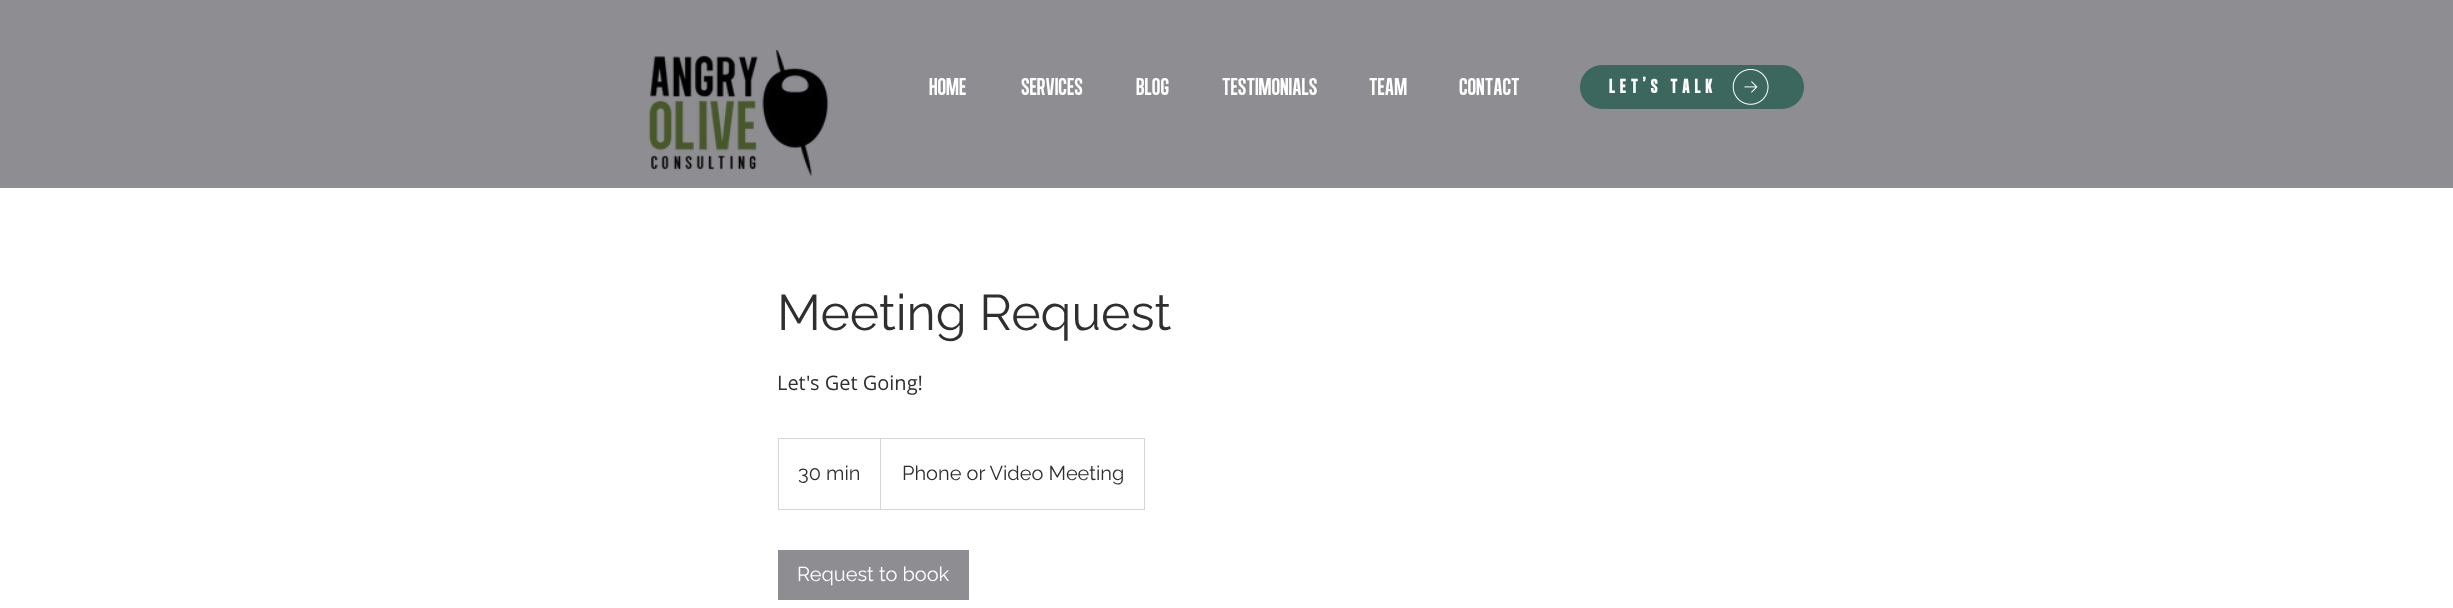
<svg xmlns="http://www.w3.org/2000/svg" xmlns:xlink="http://www.w3.org/1999/xlink" width="2453" height="608" viewBox="0 0 2453 608">
<style>
.cls-1{font:25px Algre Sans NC;fill:#ffffff}
.cls-2{font:bold 20px Algre Sans NC;letter-spacing:5px;fill:#ffffff}
.cls-3{font:50px Raleway;fill:#2f2f30}
.cls-4{font:20px Open Sans;fill:#2f2f30}
.cls-5{font:20px Raleway;fill:#2f2f30}
.cls-6{font:20px Raleway;fill:#ffffff}
</style>
<rect width="100%" height="100%" fill="#ffffff"/>
<rect fill="#8e8d91" x="0" y="0" width="2453" height="188"/>
<image xlink:href="image0.png" x="648" y="50" width="181" height="127"/>
<rect fill="#3b675e" x="1580" y="65" width="224" height="44" rx="22"/>
<image xlink:href="image1.png" x="1732" y="69" width="37" height="36"/>
<rect fill="none" stroke="#d5d5d6" x="778.5" y="438.5" width="366" height="71"/>
<path fill="#d5d5d6" d="M880 509V438L881 439V509Z"/>
<rect fill="#8e8d91" x="778" y="550" width="191" height="50"/>
<text class="cls-1" x="929" y="95">Home</text>
<text class="cls-1" x="1021" y="95">Services</text>
<text class="cls-1" x="1136" y="95">Blog</text>
<text class="cls-1" x="1222" y="95">Testimonials</text>
<text class="cls-1" x="1369" y="95">Team</text>
<text class="cls-1" x="1459" y="95">Contact</text>
<text class="cls-2" x="1609" y="93">Let's Talk</text>
<text class="cls-3" x="777" y="330">Meeting Request</text>
<text class="cls-4" x="777" y="390">Let's Get Going!</text>
<text class="cls-5" x="798" y="480">30 min</text>
<text class="cls-5" x="902" y="480">Phone or Video Meeting</text>
<text class="cls-6" x="797" y="581">Request to book</text>
</svg>
